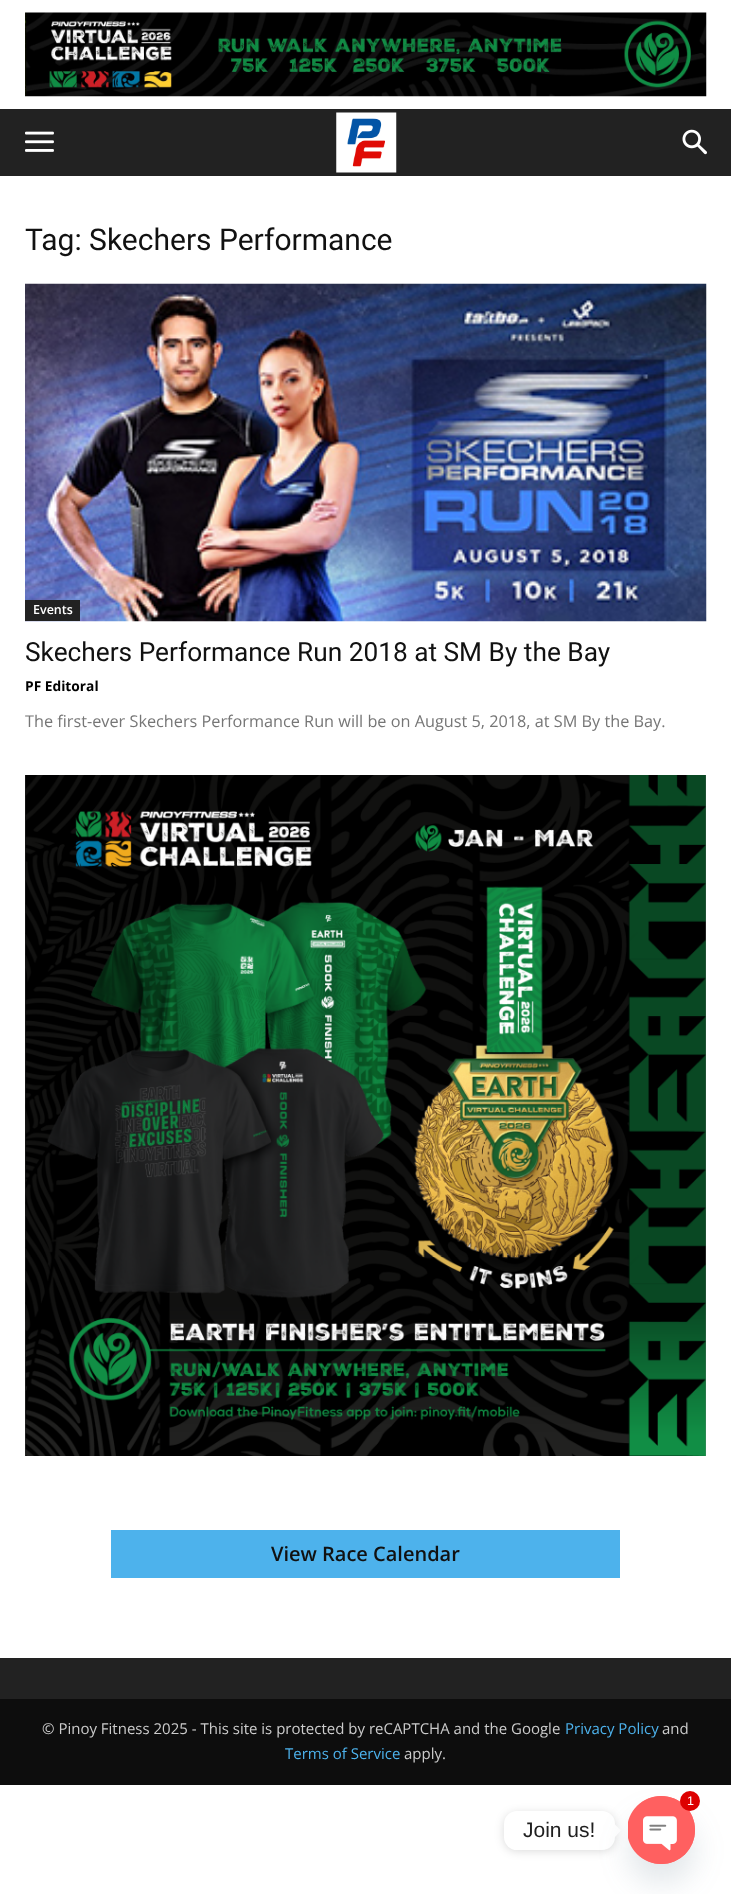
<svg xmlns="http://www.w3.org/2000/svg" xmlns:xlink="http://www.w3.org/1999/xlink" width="731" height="1894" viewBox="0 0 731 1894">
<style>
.cls-1{font:30px Roboto;fill:#111111}
.cls-2{font:600 12.5px Open Sans;fill:#ffffff}
.cls-3{font:26.25px Roboto;fill:#111111}
.cls-4{font:bold 13.75px Open Sans;fill:#000000}
.cls-5{font:16.25px Open Sans;fill:#767676}
.cls-6{font:600 20px Open Sans;fill:#111111}
.cls-7{font:15px Open Sans;fill:#cccccc}
.cls-8{font:15px Open Sans;fill:#4db2ec}
.cls-9{font:12.5px Liberation Sans;fill:#ffffff}
.cls-10{font:21px Liberation Sans;fill:#202020}
</style>
<rect width="100%" height="100%" fill="#ffffff"/>
<image xlink:href="image0.png" x="25" y="12" width="682" height="85"/>
<rect fill="#222222" x="0" y="109" width="731" height="67"/>
<image xlink:href="image1.png" x="25" y="131" width="29" height="21"/>
<image xlink:href="image2.png" x="336" y="112" width="61" height="61"/>
<image xlink:href="image3.png" x="682" y="129" width="25" height="26"/>
<image xlink:href="image4.png" x="25" y="283" width="682" height="339"/>
<rect fill="#222222" x="25" y="600" width="55" height="21"/>
<image xlink:href="image5.png" x="25" y="775" width="681" height="681"/>
<rect fill="#4db2ec" x="111" y="1530" width="509" height="48"/>
<rect fill="#222222" x="0" y="1658" width="731" height="41"/>
<rect fill="#0d0d0d" x="0" y="1699" width="731" height="86"/>
<rect fill="#000000" fill-opacity="0.15" filter="blur(5px)" x="504" y="1813" width="111" height="38" rx="13"/>
<rect fill="#ffffff" x="504" y="1811" width="111" height="39" rx="13"/>
<path fill="#ffffff" d="M615 1837V1824.5L621 1830.5Z"/>
<rect fill="#49687e" fill-opacity="0.16" filter="blur(15px)" x="628" y="1816" width="67" height="68" rx="33.5"/>
<rect fill="#ff6060" x="628" y="1796" width="67" height="68" rx="33.5"/>
<image xlink:href="image6.png" x="628" y="1796" width="67" height="68"/>
<circle fill="#dd0000" cx="690" cy="1801" r="10"/>
<text class="cls-1" x="25" y="250">Tag: Skechers Performance</text>
<text class="cls-2" x="33" y="614">Events</text>
<text class="cls-3" x="25" y="661">Skechers Performance Run 2018 at SM By the Bay</text>
<text class="cls-4" x="25" y="691">PF Editoral</text>
<text class="cls-5" x="25" y="727">The first-ever Skechers Performance Run will be on August 5, 2018, at SM By the Bay.</text>
<text class="cls-6" x="271" y="1561">View Race Calendar</text>
<text class="cls-7" x="42" y="1734">© Pinoy Fitness 2025 - This site is protected by reCAPTCHA and the Google</text>
<text class="cls-8" x="565" y="1734">Privacy Policy</text>
<text class="cls-7" x="662" y="1734">and</text>
<text class="cls-8" x="285" y="1759">Terms of Service</text>
<text class="cls-7" x="404" y="1759">apply.</text>
<text class="cls-9" x="687" y="1805">1</text>
<text class="cls-10" x="523" y="1837">Join us!</text>
</svg>
